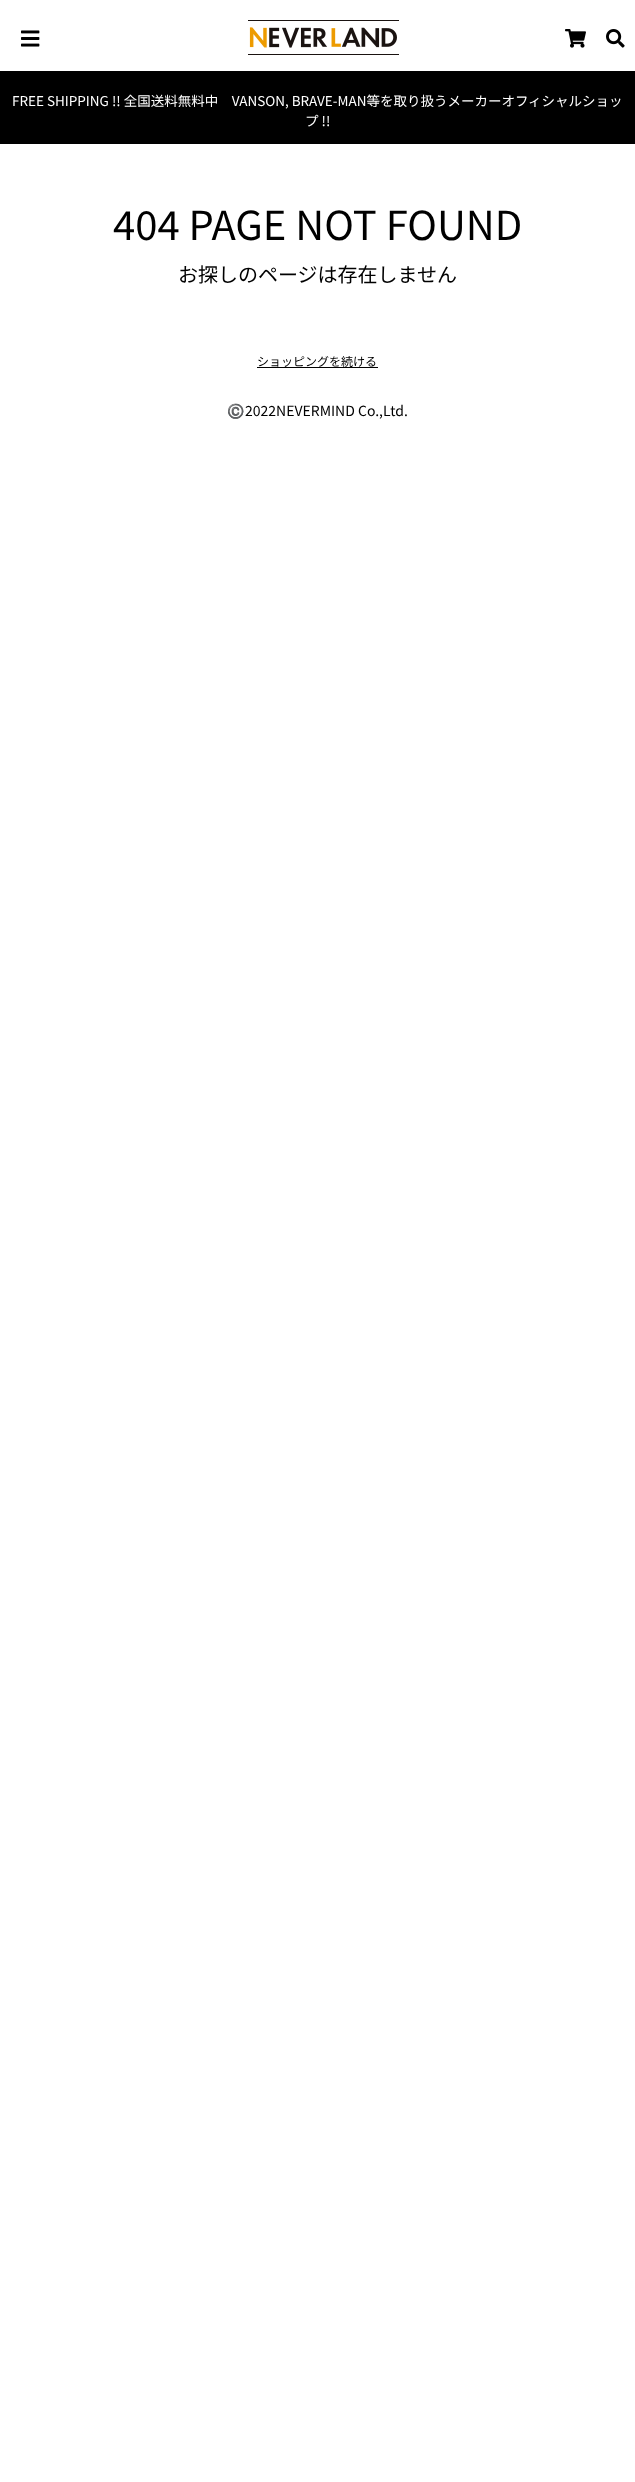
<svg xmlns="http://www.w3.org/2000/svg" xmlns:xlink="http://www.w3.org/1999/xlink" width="635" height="2482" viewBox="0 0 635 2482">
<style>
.cls-1{font:13.5px Noto Sans JP;fill:#ffffff}
.cls-2{font:40px Noto Sans JP;fill:#000000}
.cls-3{font:20px Noto Sans JP;fill:#000000}
.cls-4{font:12px Noto Sans JP;fill:#000000}
.cls-5{font:14px Noto Color Emoji;fill:#000000}
.cls-6{font:14px Noto Sans JP;fill:#000000}
</style>
<rect width="100%" height="100%" fill="#ffffff"/>
<image xlink:href="image0.png" x="21" y="30" width="19" height="17"/>
<image xlink:href="image1.png" x="248" y="20" width="151" height="35"/>
<image xlink:href="image2.png" x="565" y="29" width="21" height="19"/>
<image xlink:href="image3.png" x="606" y="29" width="19" height="19"/>
<rect fill="#000000" x="0" y="71" width="635" height="73"/>
<rect fill="#000000" x="257" y="367" width="121" height="1"/>
<text class="cls-1" x="12" y="106">FREE SHIPPING !! 全国送料無料中　VANSON, BRAVE-MAN等を取り扱うメーカーオフィシャルショッ</text>
<text class="cls-1" x="305" y="126">プ !!</text>
<text class="cls-2" x="113" y="240">404 PAGE NOT FOUND</text>
<text class="cls-3" x="178" y="282">お探しのページは存在しません</text>
<text class="cls-4" x="257" y="366">ショッピングを続ける</text>
<text class="cls-5" x="227" y="416">©️</text>
<text class="cls-6" x="245" y="416">2022NEVERMIND Co.,Ltd.</text>
</svg>
